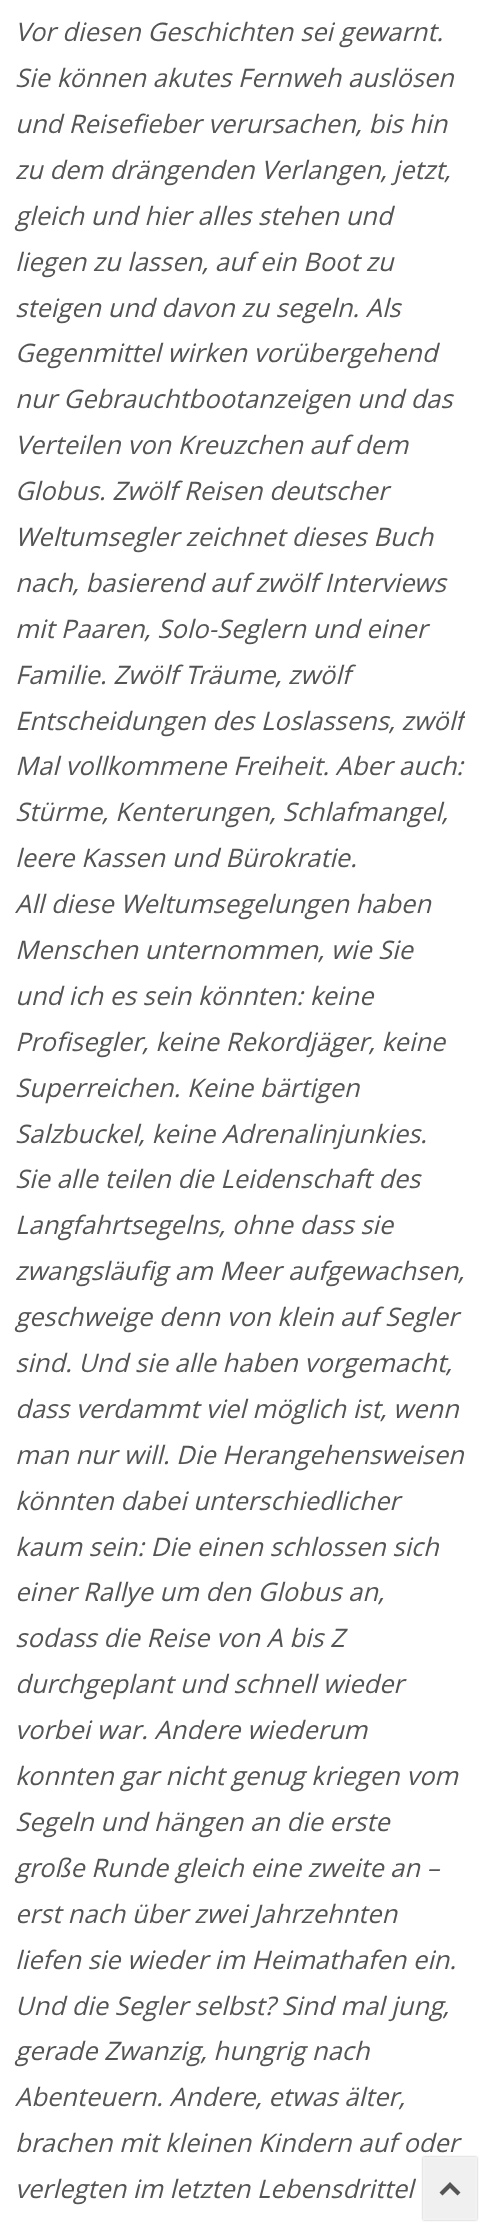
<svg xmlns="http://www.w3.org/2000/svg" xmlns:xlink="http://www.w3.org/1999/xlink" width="480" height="2223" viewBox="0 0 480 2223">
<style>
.cls-1{font:italic 25.5px Open Sans;fill:#555555}
</style>
<defs>
<clipPath id="clip1"><rect x="15" y="0" width="450" height="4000"/></clipPath>
</defs>
<rect width="100%" height="100%" fill="#ffffff"/>
<rect fill="#000000" fill-opacity="0.28" filter="blur(1px)" x="423" y="2157" width="54" height="63"/>
<rect fill="#f0f0f0" stroke="#f2f2f2" stroke-width="2" x="424" y="2158" width="52" height="61"/>
<path fill="#555555" d="M439.5 2192.5L450 2182L460.5 2192.5L457.5 2195.5L450 2188L442.5 2195.5Z"/>
<text class="cls-1"><tspan x="15" y="41">Vor diesen Geschichten sei gewarnt.</tspan><tspan x="15" y="87">Sie können akutes Fernweh auslösen</tspan><tspan x="15" y="133">und Reisefieber verursachen, bis hin</tspan><tspan x="15" y="179">zu dem drängenden Verlangen, jetzt,</tspan><tspan x="15" y="225">gleich und hier alles stehen und</tspan><tspan x="15" y="271">liegen zu lassen, auf ein Boot zu</tspan><tspan x="15" y="317">steigen und davon zu segeln. Als</tspan><tspan x="15" y="362">Gegenmittel wirken vorübergehend</tspan><tspan x="15" y="408">nur Gebrauchtbootanzeigen und das</tspan><tspan x="15" y="454">Verteilen von Kreuzchen auf dem</tspan><tspan x="15" y="500">Globus. Zwölf Reisen deutscher</tspan><tspan x="15" y="546">Weltumsegler zeichnet dieses Buch</tspan><tspan x="15" y="592">nach, basierend auf zwölf Interviews</tspan><tspan x="15" y="638">mit Paaren, Solo-Seglern und einer</tspan><tspan x="15" y="684">Familie. Zwölf Träume, zwölf</tspan></text>
<g clip-path="url(#clip1)">
<text class="cls-1" x="15" y="730">Entscheidungen des Loslassens, zwölf</text>
</g>
<text class="cls-1"><tspan x="15" y="775">Mal vollkommene Freiheit. Aber auch:</tspan><tspan x="15" y="821">Stürme, Kenterungen, Schlafmangel,</tspan><tspan x="15" y="867">leere Kassen und Bürokratie.</tspan><tspan x="15" y="913">All diese Weltumsegelungen haben</tspan><tspan x="15" y="959">Menschen unternommen, wie Sie</tspan><tspan x="15" y="1005">und ich es sein könnten: keine</tspan><tspan x="15" y="1051">Profisegler, keine Rekordjäger, keine</tspan><tspan x="15" y="1097">Superreichen. Keine bärtigen</tspan><tspan x="15" y="1143">Salzbuckel, keine Adrenalinjunkies.</tspan><tspan x="15" y="1188">Sie alle teilen die Leidenschaft des</tspan><tspan x="15" y="1234">Langfahrtsegelns, ohne dass sie</tspan><tspan x="15" y="1280">zwangsläufig am Meer aufgewachsen,</tspan><tspan x="15" y="1326">geschweige denn von klein auf Segler</tspan><tspan x="15" y="1372">sind. Und sie alle haben vorgemacht,</tspan><tspan x="15" y="1418">dass verdammt viel möglich ist, wenn</tspan><tspan x="15" y="1464">man nur will. Die Herangehensweisen</tspan><tspan x="15" y="1510">könnten dabei unterschiedlicher</tspan><tspan x="15" y="1556">kaum sein: Die einen schlossen sich</tspan><tspan x="15" y="1601">einer Rallye um den Globus an,</tspan><tspan x="15" y="1647">sodass die Reise von A bis Z</tspan><tspan x="15" y="1693">durchgeplant und schnell wieder</tspan><tspan x="15" y="1739">vorbei war. Andere wiederum</tspan><tspan x="15" y="1785">konnten gar nicht genug kriegen vom</tspan><tspan x="15" y="1831">Segeln und hängen an die erste</tspan><tspan x="15" y="1877">große Runde gleich eine zweite an –</tspan><tspan x="15" y="1923">erst nach über zwei Jahrzehnten</tspan><tspan x="15" y="1969">liefen sie wieder im Heimathafen ein.</tspan><tspan x="15" y="2015">Und die Segler selbst? Sind mal jung,</tspan><tspan x="15" y="2060">gerade Zwanzig, hungrig nach</tspan><tspan x="15" y="2106">Abenteuern. Andere, etwas älter,</tspan><tspan x="15" y="2152">brachen mit kleinen Kindern auf oder</tspan><tspan x="15" y="2198">verlegten im letzten Lebensdrittel</tspan></text>
</svg>
